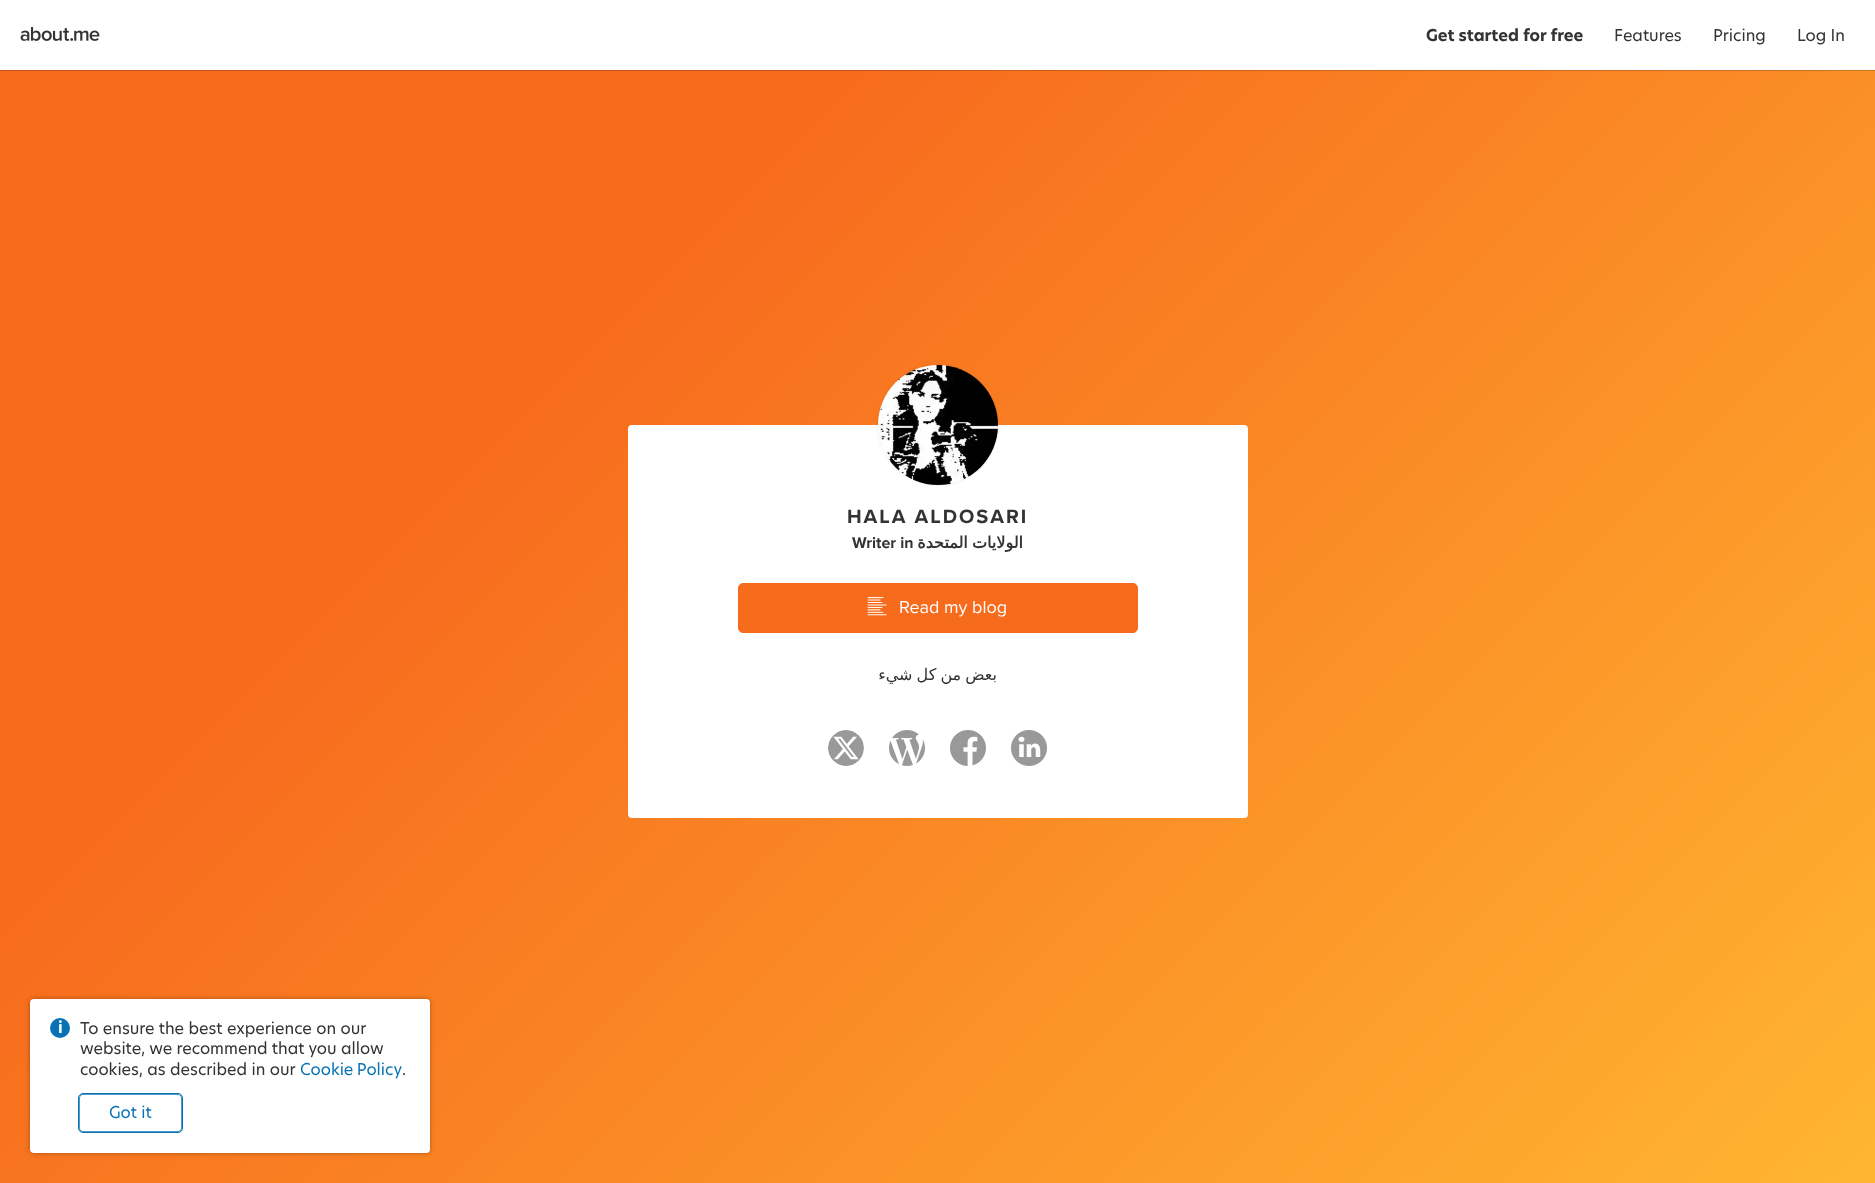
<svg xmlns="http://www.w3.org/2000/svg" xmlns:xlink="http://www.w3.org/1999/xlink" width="1875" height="1183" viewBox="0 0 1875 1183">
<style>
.cls-1{font:bold 16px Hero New;fill:#333333}
.cls-2{font:16px Hero New;fill:#333333}
.cls-3{font:bold 20px Proxima Nova;letter-spacing:2px;fill:#333333}
.cls-4{font:bold 16px Proxima Nova;fill:#333333}
.cls-5{font:bold 16px DejaVu Sans;direction:rtl;fill:#333333}
.cls-6{font:18px Proxima Nova;fill:#ffffff}
.cls-7{font:16px DejaVu Sans;direction:rtl;fill:#333333}
.cls-8{font:16px Hero New;fill:#0872b4}
</style>
<defs>
<linearGradient id="g1" gradientUnits="userSpaceOnUse" x1="173" y1="-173" x2="1702" y2="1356"><stop offset="0" stop-color="#f76b1d"/><stop offset="0.3" stop-color="#f76b1d"/><stop offset="1" stop-color="#ffb631"/></linearGradient>
<linearGradient id="g2" gradientUnits="userSpaceOnUse" x1="173" y1="-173" x2="1702" y2="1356"><stop offset="0" stop-color="#c65617"/><stop offset="0.3" stop-color="#c65617"/><stop offset="1" stop-color="#cc9227"/></linearGradient>
</defs>
<rect width="100%" height="100%" fill="#ffffff"/>
<rect fill="url(#g1)" x="0" y="71" width="1875" height="1112"/>
<rect fill="url(#g2)" x="0" y="70" width="1875" height="1"/>
<image xlink:href="image0.png" x="20" y="27" width="80" height="14"/>
<rect fill="#ffffff" x="628" y="425" width="620" height="393" rx="4"/>
<rect fill="#000000" fill-opacity="0.1" filter="blur(1px)" x="878" y="365" width="120" height="120" rx="60"/>
<image xlink:href="image1.png" x="878" y="365" width="120" height="120"/>
<rect fill="#f76b1d" stroke="#f76b1d" x="738.5" y="583.5" width="399" height="49" rx="4.5"/>
<image xlink:href="image2.png" x="867" y="597" width="20" height="19"/>
<image xlink:href="image3.png" x="828" y="730" width="36" height="36"/>
<image xlink:href="image4.png" x="889" y="730" width="36" height="36"/>
<image xlink:href="image5.png" x="950" y="730" width="36" height="36"/>
<image xlink:href="image6.png" x="1011" y="730" width="36" height="36"/>
<rect fill="#000000" fill-opacity="0.3" filter="blur(2.5px)" x="30" y="999" width="400" height="154" rx="4"/>
<rect fill="#ffffff" x="30" y="999" width="400" height="154" rx="4"/>
<circle fill="#0872b4" cx="60" cy="1028" r="10"/>
<image xlink:href="image7.png" x="59" y="1020" width="3" height="13"/>
<rect fill="none" stroke="#0872b4" stroke-width="0.8" x="79.4" y="1094.4" width="102.2" height="37.2" rx="3.6"/>
<rect fill="none" stroke="#0872b4" x="78.5" y="1093.5" width="104" height="39" rx="4.5"/>
<text class="cls-1" x="1426" y="41">Get started for free</text>
<text class="cls-2" x="1614" y="41">Features</text>
<text class="cls-2" x="1713" y="41">Pricing</text>
<text class="cls-2" x="1797" y="41">Log In</text>
<text class="cls-3" x="847" y="523">HALA ALDOSARI</text>
<text class="cls-4" x="852" y="548">Writer in</text>
<text class="cls-5" x="1023" y="548" word-spacing="-1">الولايات المتحدة</text>
<text class="cls-6" x="899" y="613">Read my blog</text>
<text class="cls-7" x="997" y="680" word-spacing="-1">بعض من كل شيء</text>
<text class="cls-2"><tspan x="80" y="1034">To ensure the best experience on our</tspan><tspan x="80" y="1054">website, we recommend that you allow</tspan><tspan x="80" y="1075">cookies, as described in our</tspan></text>
<text class="cls-8" x="300" y="1075" word-spacing="-1">Cookie Policy</text>
<text class="cls-2" x="402" y="1075">.</text>
<text class="cls-8" x="109" y="1118">Got it</text>
</svg>
